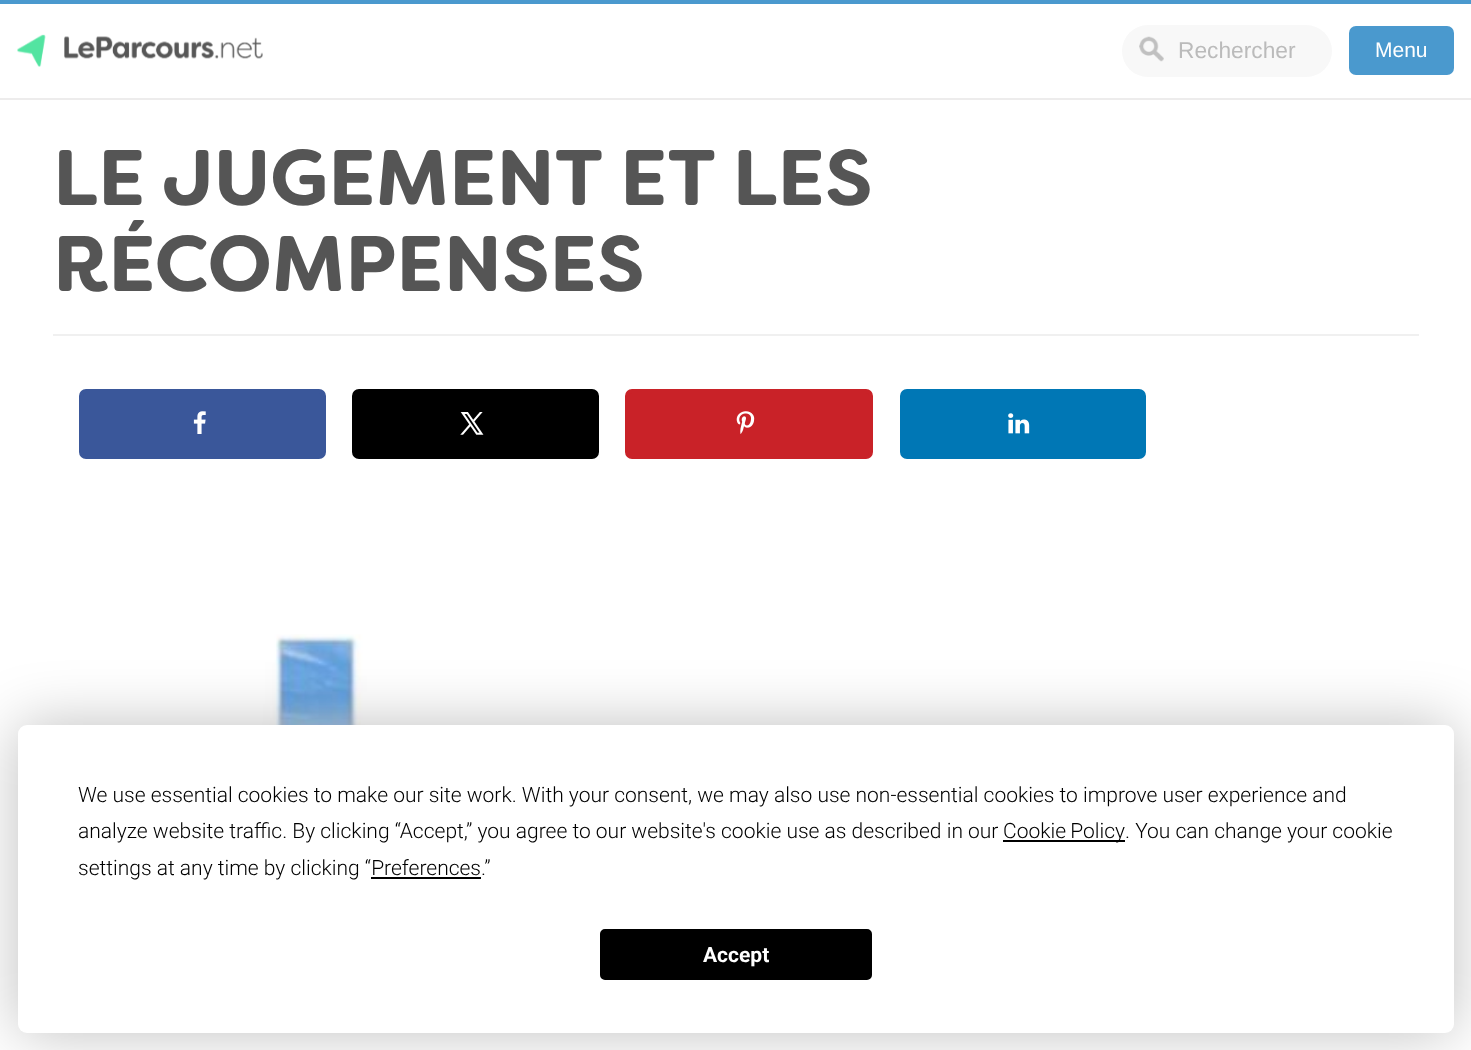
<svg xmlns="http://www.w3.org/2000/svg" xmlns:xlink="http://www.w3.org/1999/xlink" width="1471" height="1050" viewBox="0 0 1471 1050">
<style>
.cls-1{font:22.75px Liberation Sans;fill:#bbbbbb}
.cls-2{font:21px Liberation Sans;fill:#ffffff}
.cls-3{font:bold 78.75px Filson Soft;fill:#555555}
.cls-4{font:300 21px Roboto;fill:#000000}
.cls-5{font:bold 21px Roboto;fill:#ffffff}
</style>
<rect width="100%" height="100%" fill="#ffffff"/>
<rect fill="#4a99ce" x="0" y="0" width="1471" height="4"/>
<rect fill="#edecec" x="0" y="98" width="1471" height="2"/>
<image xlink:href="image0.png" x="17" y="34" width="246" height="33"/>
<rect fill="#f8f8f8" x="1122" y="25" width="210" height="52" rx="26"/>
<image xlink:href="image1.png" x="1139" y="36" width="25" height="26"/>
<rect fill="#4a99ce" x="1349" y="26" width="105" height="49" rx="7"/>
<rect fill="#f0f0f0" x="53" y="334" width="1366" height="2"/>
<rect fill="#3a579a" stroke="#3a579a" stroke-width="4" x="81" y="391" width="243" height="66" rx="5"/>
<image xlink:href="image2.png" x="193" y="411" width="13" height="23"/>
<rect fill="#000000" stroke="#000000" stroke-width="4" x="354" y="391" width="243" height="66" rx="5"/>
<image xlink:href="image3.png" x="460" y="412" width="24" height="23"/>
<rect fill="#c92228" stroke="#c92228" stroke-width="4" x="627" y="391" width="244" height="66" rx="5"/>
<image xlink:href="image4.png" x="736" y="411" width="19" height="23"/>
<rect fill="#0077b5" stroke="#0077b5" stroke-width="4" x="902" y="391" width="242" height="66" rx="5"/>
<image xlink:href="image5.png" x="1008" y="413" width="22" height="21"/>
<image xlink:href="image6.png" x="193" y="634" width="245" height="91"/>
<rect fill="#000000" fill-opacity="0.25" filter="blur(30.5px)" x="18" y="725" width="1436" height="308" rx="9"/>
<rect fill="#ffffff" x="18" y="725" width="1436" height="308" rx="9"/>
<rect fill="#000000" x="1003" y="840" width="122" height="2"/>
<rect fill="#000000" x="371" y="877" width="110" height="2"/>
<rect fill="#000000" stroke="#000000" stroke-width="2" x="601" y="930" width="270" height="49" rx="4"/>
<text class="cls-1" x="1178" y="58">Rechercher</text>
<text class="cls-2" x="1375" y="57">Menu</text>
<text class="cls-3"><tspan x="53" y="205">LE JUGEMENT ET LES</tspan><tspan x="53" y="291">RÉCOMPENSES</tspan></text>
<text class="cls-4"><tspan x="78" y="802">We use essential cookies to make our site work. With your consent, we may also use non-essential cookies to improve user experience and</tspan><tspan x="78" y="838">analyze website traffic. By clicking “Accept,” you agree to our website's cookie use as described in our</tspan></text>
<text class="cls-4" x="1003" y="838" word-spacing="-1">Cookie Policy</text>
<text class="cls-4" x="1125" y="838">. You can change your cookie</text>
<text class="cls-4" x="78" y="875">settings at any time by clicking “Preferences.”</text>
<text class="cls-5" x="703" y="962">Accept</text>
</svg>
